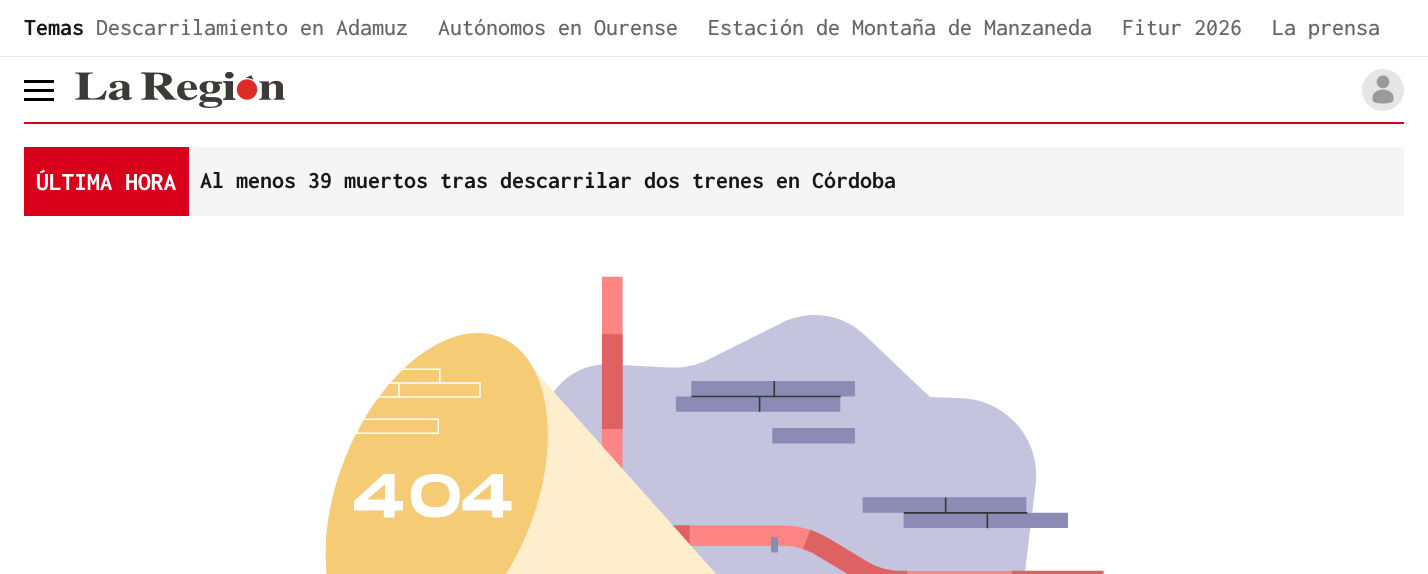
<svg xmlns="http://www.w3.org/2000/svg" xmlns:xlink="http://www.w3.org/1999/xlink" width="1428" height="574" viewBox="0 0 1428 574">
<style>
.cls-1{font:bold 24px Inconsolata;fill:#171717}
.cls-2{font:500 24px Inconsolata;fill:#666666}
.cls-3{font:bold 25.5px Inconsolata;fill:#ffffff}
</style>
<rect width="100%" height="100%" fill="#ffffff"/>
<rect fill="#e6e6e6" x="0" y="56" width="1428" height="1"/>
<rect fill="#000000" x="24" y="80" width="30" height="3"/>
<rect fill="#000000" x="24" y="89" width="30" height="3"/>
<rect fill="#000000" x="24" y="98" width="30" height="3"/>
<image xlink:href="image0.png" x="75" y="72" width="210" height="36"/>
<circle fill="#e6e6e6" cx="1383" cy="90" r="21"/>
<image xlink:href="image1.png" x="1372" y="75" width="22" height="29"/>
<rect fill="#d8001a" x="24" y="122" width="1380" height="2"/>
<rect fill="#f5f5f5" x="189" y="147" width="1215" height="69"/>
<rect fill="#d8001a" x="24" y="147" width="165" height="69"/>
<image xlink:href="image2.png" x="325" y="276" width="779" height="298"/>
<text class="cls-1" x="24" y="35">Temas</text>
<text class="cls-2" x="96" y="35">Descarrilamiento en Adamuz</text>
<text class="cls-2" x="438" y="35">Autónomos en Ourense</text>
<text class="cls-2" x="708" y="35">Estación de Montaña de Manzaneda</text>
<text class="cls-2" x="1122" y="35">Fitur 2026</text>
<text class="cls-2" x="1272" y="35">La prensa</text>
<text class="cls-3" x="36" y="190">ÚLTIMA HORA</text>
<text class="cls-1" x="200" y="188">Al menos 39 muertos tras descarrilar dos trenes en Córdoba</text>
</svg>
